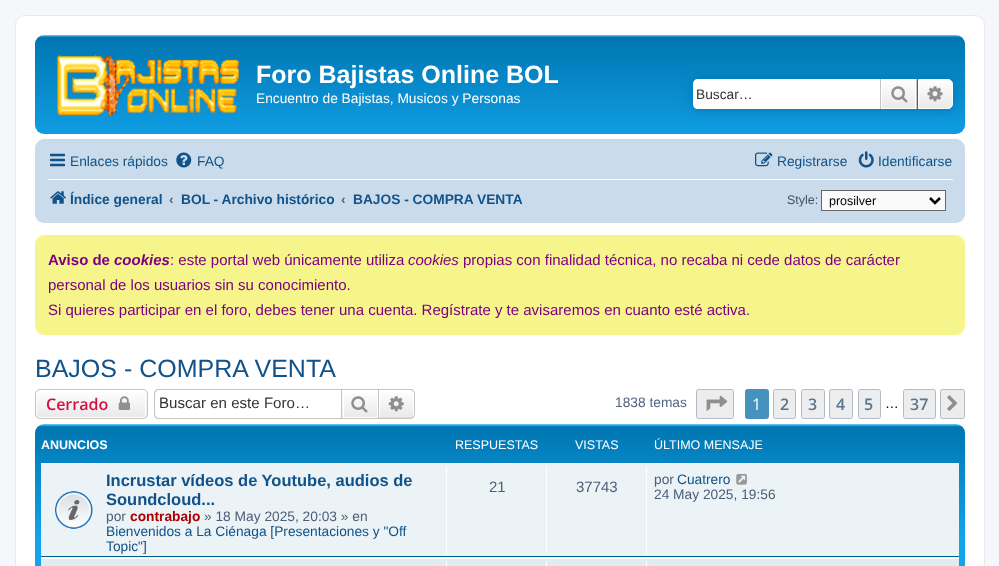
<svg xmlns="http://www.w3.org/2000/svg" xmlns:xlink="http://www.w3.org/1999/xlink" width="999" height="566" viewBox="0 0 999 566">
<style>
.cls-1{font:bold 25px Liberation Sans;fill:#ffffff}
.cls-2{font:13.75px Liberation Sans;fill:#ffffff}
.cls-3{font:13.75px Liberation Sans;fill:#333333}
.cls-4{font:13.75px Liberation Sans;fill:#105289}
.cls-5{font:bold 13.75px Liberation Sans;fill:#105289}
.cls-6{font:bold 13.75px Liberation Sans;fill:#536482}
.cls-7{font:12.5px Liberation Sans;fill:#425067}
.cls-8{font:12.5px Liberation Sans;fill:#000000}
.cls-9{font:bold 15px Liberation Sans;fill:#800080}
.cls-10{font:italic bold 15px Liberation Sans;fill:#800080}
.cls-11{font:15px Liberation Sans;fill:#800080}
.cls-12{font:italic 15px Liberation Sans;fill:#800080}
.cls-13{font:25px Liberation Sans;fill:#105289}
.cls-14{font:600 16px Open Sans;fill:#d31141}
.cls-15{font:15.1px Liberation Sans;fill:#333333}
.cls-16{font:13.75px Liberation Sans;fill:#536482}
.cls-17{font:16px Open Sans;fill:#ffffff}
.cls-18{font:600 16px Open Sans;fill:#5c758c}
.cls-19{font:13.75px Liberation Sans;fill:#000000}
.cls-20{font:bold 12.5px Liberation Sans;fill:#ffffff}
.cls-21{font:12.5px Liberation Sans;fill:#ffffff}
.cls-22{font:bold 16.5px Liberation Sans;fill:#105289}
.cls-23{font:13.75px Liberation Sans;fill:#4c5d77}
.cls-24{font:bold 13.75px Liberation Sans;fill:#aa0000}
.cls-25{font:15px Liberation Sans;fill:#4c5d77}
</style>
<defs>
<linearGradient id="g1" gradientUnits="userSpaceOnUse" x1="500" y1="35" x2="500" y2="150"><stop offset="0" stop-color="#6aceff"/><stop offset="0.02" stop-color="#0076b1"/><stop offset="1" stop-color="#12a3eb"/></linearGradient>
<linearGradient id="g2" gradientUnits="userSpaceOnUse" x1="899" y1="79" x2="899" y2="109"><stop offset="0" stop-color="#ffffff"/><stop offset="1" stop-color="#e9e9e9"/></linearGradient>
<linearGradient id="g3" gradientUnits="userSpaceOnUse" x1="935" y1="79" x2="935" y2="109"><stop offset="0" stop-color="#ffffff"/><stop offset="1" stop-color="#e9e9e9"/></linearGradient>
<clipPath id="clip1"><rect x="35" y="389" width="113" height="30" rx="5"/></clipPath>
<linearGradient id="g4" gradientUnits="userSpaceOnUse" x1="91" y1="390" x2="91" y2="418"><stop offset="0" stop-color="#ffffff"/><stop offset="1" stop-color="#e9e9e9"/></linearGradient>
<linearGradient id="g5" gradientUnits="userSpaceOnUse" x1="360" y1="390" x2="360" y2="418"><stop offset="0" stop-color="#ffffff"/><stop offset="1" stop-color="#e9e9e9"/></linearGradient>
<linearGradient id="g6" gradientUnits="userSpaceOnUse" x1="396" y1="390" x2="396" y2="418"><stop offset="0" stop-color="#ffffff"/><stop offset="1" stop-color="#e9e9e9"/></linearGradient>
<linearGradient id="g7" gradientUnits="userSpaceOnUse" x1="500" y1="424" x2="500" y2="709"><stop offset="0" stop-color="#6aceff"/><stop offset="0.01" stop-color="#0076b1"/><stop offset="0.4" stop-color="#12a3eb"/><stop offset="1" stop-color="#12a3eb"/></linearGradient>
</defs>
<rect width="100%" height="100%" fill="#f5f7fa"/>
<rect fill="#ffffff" stroke="#e6e9ed" x="15.5" y="15.5" width="969" height="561" rx="9.5"/>
<rect fill="url(#g1)" x="35" y="35" width="930" height="99" rx="9"/>
<image xlink:href="image0.png" x="57" y="54" width="182" height="63"/>
<rect fill="#0075b0" filter="blur(6px)" x="693" y="79" width="260" height="30" rx="5"/>
<path fill="#ffffff" d="M698 79H880V109H698C695 109 693 107 693 104V84C693 81 695 79 698 79Z"/>
<rect fill="url(#g2)" x="882" y="80" width="33" height="28"/>
<rect fill="none" stroke="#ffffff" x="881.5" y="79.5" width="34" height="29"/>
<rect fill="#c7c3bf" x="916" y="79" width="1" height="30"/>
<rect fill="#c7c3bf" x="880" y="79" width="1" height="30"/>
<image xlink:href="image1.png" x="891" y="86" width="17" height="17"/>
<path fill="url(#g3)" stroke="#ffffff" d="M918.5 79.5H948C950.5 79.5 952.5 81.5 952.5 84V104C952.5 106.5 950.5 108.5 948 108.5H918.5Z"/>
<image xlink:href="image2.png" x="927" y="86" width="16" height="16"/>
<rect fill="#cadceb" x="35" y="139" width="930" height="84" rx="9"/>
<image xlink:href="image3.png" x="50" y="153" width="15" height="14"/>
<image xlink:href="image4.png" x="176" y="152" width="16" height="16"/>
<image xlink:href="image5.png" x="755" y="152" width="18" height="15"/>
<image xlink:href="image6.png" x="858" y="151" width="16" height="17"/>
<rect fill="#ffffff" x="48" y="179" width="905" height="1"/>
<image xlink:href="image7.png" x="50" y="191" width="16" height="13"/>
<rect fill="#fafafa" stroke="#666666" x="821.5" y="190.5" width="124" height="20"/>
<path fill="none" stroke="#000000" stroke-width="2.5" d="M930 198L935 203L940 198"/>
<rect fill="#f5f58c" x="35" y="235" width="930" height="100" rx="9"/>
<g clip-path="url(#clip1)">
<rect fill="url(#g4)" x="35" y="390" width="113" height="28"/>
</g>
<rect fill="none" stroke="#ffffff" x="36.5" y="390.5" width="109" height="27" rx="3.5"/>
<rect fill="none" stroke="#c7c3bf" x="35.5" y="389.5" width="112" height="29" rx="4.5"/>
<image xlink:href="image8.png" x="118" y="396" width="12" height="14"/>
<path fill="#c7c3bf" fill-rule="evenodd" d="M159 389H341V419H159C156 419 154 417 154 414V394C154 391 156 389 159 389ZM159 390H341V418H159C157 418 155 416 155 414V394C155 392 157 390 159 390Z"/>
<rect fill="url(#g5)" x="342" y="393" width="35" height="25"/>
<rect fill="none" stroke="#ffffff" x="343.5" y="390.5" width="34" height="27"/>
<rect fill="none" stroke="#c7c3bf" x="341.5" y="389.5" width="37" height="29"/>
<image xlink:href="image9.png" x="351" y="396" width="17" height="17"/>
<path fill="url(#g6)" stroke="#ffffff" d="M379.5 390.5H410C412 390.5 413.5 392 413.5 394V414C413.5 416 412 417.5 410 417.5H379.5Z"/>
<path fill="#c7c3bf" fill-rule="evenodd" d="M379 389H410C413 389 415 391 415 394V414C415 416.5 413 419 410 419H379ZM379 390H410C412 390 414 391.5 414 394V414C414 416 412 417.5 410 417.5H379Z"/>
<image xlink:href="image10.png" x="388" y="396" width="16" height="16"/>
<rect fill="#ecedee" stroke="#b4bac0" x="696.5" y="389.5" width="37" height="29" rx="2"/>
<image xlink:href="image11.png" x="706" y="395" width="22" height="16"/>
<rect fill="#4692bf" stroke="#4692bf" x="745.5" y="389.5" width="23" height="29" rx="2"/>
<rect fill="#ecedee" stroke="#b4bac0" x="773.5" y="389.5" width="22" height="29" rx="2"/>
<rect fill="#ecedee" stroke="#b4bac0" x="801.5" y="389.5" width="23" height="29" rx="2"/>
<rect fill="#ecedee" stroke="#b4bac0" x="829.5" y="389.5" width="23" height="29" rx="2"/>
<rect fill="#ecedee" stroke="#b4bac0" x="858.5" y="389.5" width="22" height="29" rx="2"/>
<rect fill="#ecedee" stroke="#b4bac0" x="903.5" y="389.5" width="32" height="29" rx="2"/>
<rect fill="#ecedee" stroke="#b4bac0" x="940.5" y="389.5" width="24" height="29" rx="2"/>
<image xlink:href="image12.png" x="947" y="395" width="11" height="16"/>
<rect fill="url(#g7)" x="35" y="424" width="930" height="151" rx="9"/>
<rect fill="#ecf3f7" x="41" y="464" width="918" height="94"/>
<rect fill="#ffffff" x="41" y="463" width="918" height="1"/>
<rect fill="#00608f" x="41" y="556" width="918" height="1"/>
<image xlink:href="image13.png" x="55" y="491" width="38" height="38"/>
<rect fill="#ffffff" x="446" y="466" width="1" height="88"/>
<rect fill="#ffffff" x="546" y="466" width="1" height="88"/>
<rect fill="#ffffff" x="646" y="466" width="1" height="88"/>
<image xlink:href="image14.png" x="736" y="473" width="11" height="12"/>
<rect fill="#e1ebf2" x="41" y="559" width="918" height="7"/>
<rect fill="#ffffff" x="41" y="558" width="918" height="1"/>
<rect fill="#ffffff" x="446" y="561" width="1" height="5"/>
<rect fill="#ffffff" x="546" y="561" width="1" height="5"/>
<rect fill="#ffffff" x="646" y="561" width="1" height="5"/>
<text class="cls-1" x="256" y="83">Foro Bajistas Online BOL</text>
<text class="cls-2" x="256" y="103">Encuentro de Bajistas, Musicos y Personas</text>
<text class="cls-3" x="696" y="99">Buscar…</text>
<text class="cls-4" x="70" y="166">Enlaces rápidos</text>
<text class="cls-4" x="197" y="166">FAQ</text>
<text class="cls-4" x="777" y="166">Registrarse</text>
<text class="cls-4" x="878" y="166">Identificarse</text>
<text class="cls-5" x="70" y="204">Índice general</text>
<text class="cls-6" x="169" y="204">‹</text>
<text class="cls-5" x="181" y="204">BOL - Archivo histórico</text>
<text class="cls-6" x="341" y="204">‹</text>
<text class="cls-5" x="353" y="204">BAJOS - COMPRA VENTA</text>
<text class="cls-7" x="787" y="204">Style:</text>
<text class="cls-8" x="829" y="205">prosilver</text>
<text class="cls-9" x="48" y="265">Aviso de</text>
<text class="cls-10" x="114" y="265">cookies</text>
<text class="cls-11" x="170" y="265">: este portal web únicamente utiliza</text>
<text class="cls-12" x="408" y="265">cookies</text>
<text class="cls-11" x="463" y="265">propias con finalidad técnica, no recaba ni cede datos de carácter</text>
<text class="cls-11"><tspan x="48" y="290">personal de los usuarios sin su conocimiento.</tspan><tspan x="48" y="315">Si quieres participar en el foro, debes tener una cuenta. Regístrate y te avisaremos en cuanto esté activa.</tspan></text>
<text class="cls-13" x="35" y="377">BAJOS - COMPRA VENTA</text>
<text class="cls-14" x="46" y="410">Cerrado</text>
<text class="cls-15" x="159" y="408">Buscar en este Foro…</text>
<text class="cls-16" x="615" y="407">1838 temas</text>
<text class="cls-17" x="752" y="410">1</text>
<text class="cls-18" x="780" y="410">2</text>
<text class="cls-18" x="808" y="410">3</text>
<text class="cls-18" x="836" y="410">4</text>
<text class="cls-18" x="864" y="410">5</text>
<text class="cls-19" x="885" y="408">…</text>
<text class="cls-18" x="910" y="410">37</text>
<text class="cls-20" x="41" y="449">ANUNCIOS</text>
<text class="cls-21" x="455" y="449">RESPUESTAS</text>
<text class="cls-21" x="575" y="449">VISTAS</text>
<text class="cls-21" x="654" y="449">ÚLTIMO MENSAJE</text>
<text class="cls-22"><tspan x="106" y="486">Incrustar vídeos de Youtube, audios de</tspan><tspan x="106" y="505">Soundcloud...</tspan></text>
<text class="cls-23" x="106" y="521">por</text>
<text class="cls-24" x="130" y="521">contrabajo</text>
<text class="cls-23" x="204" y="521">» 18 May 2025, 20:03 » en</text>
<text class="cls-4"><tspan x="106" y="536">Bienvenidos a La Ciénaga [Presentaciones y "Off</tspan><tspan x="106" y="551">Topic"]</tspan></text>
<text class="cls-25" x="489" y="492">21</text>
<text class="cls-25" x="576" y="492">37743</text>
<text class="cls-23" x="654" y="484">por</text>
<text class="cls-4" x="677" y="484">Cuatrero</text>
<text class="cls-23" x="654" y="499">24 May 2025, 19:56</text>
</svg>
